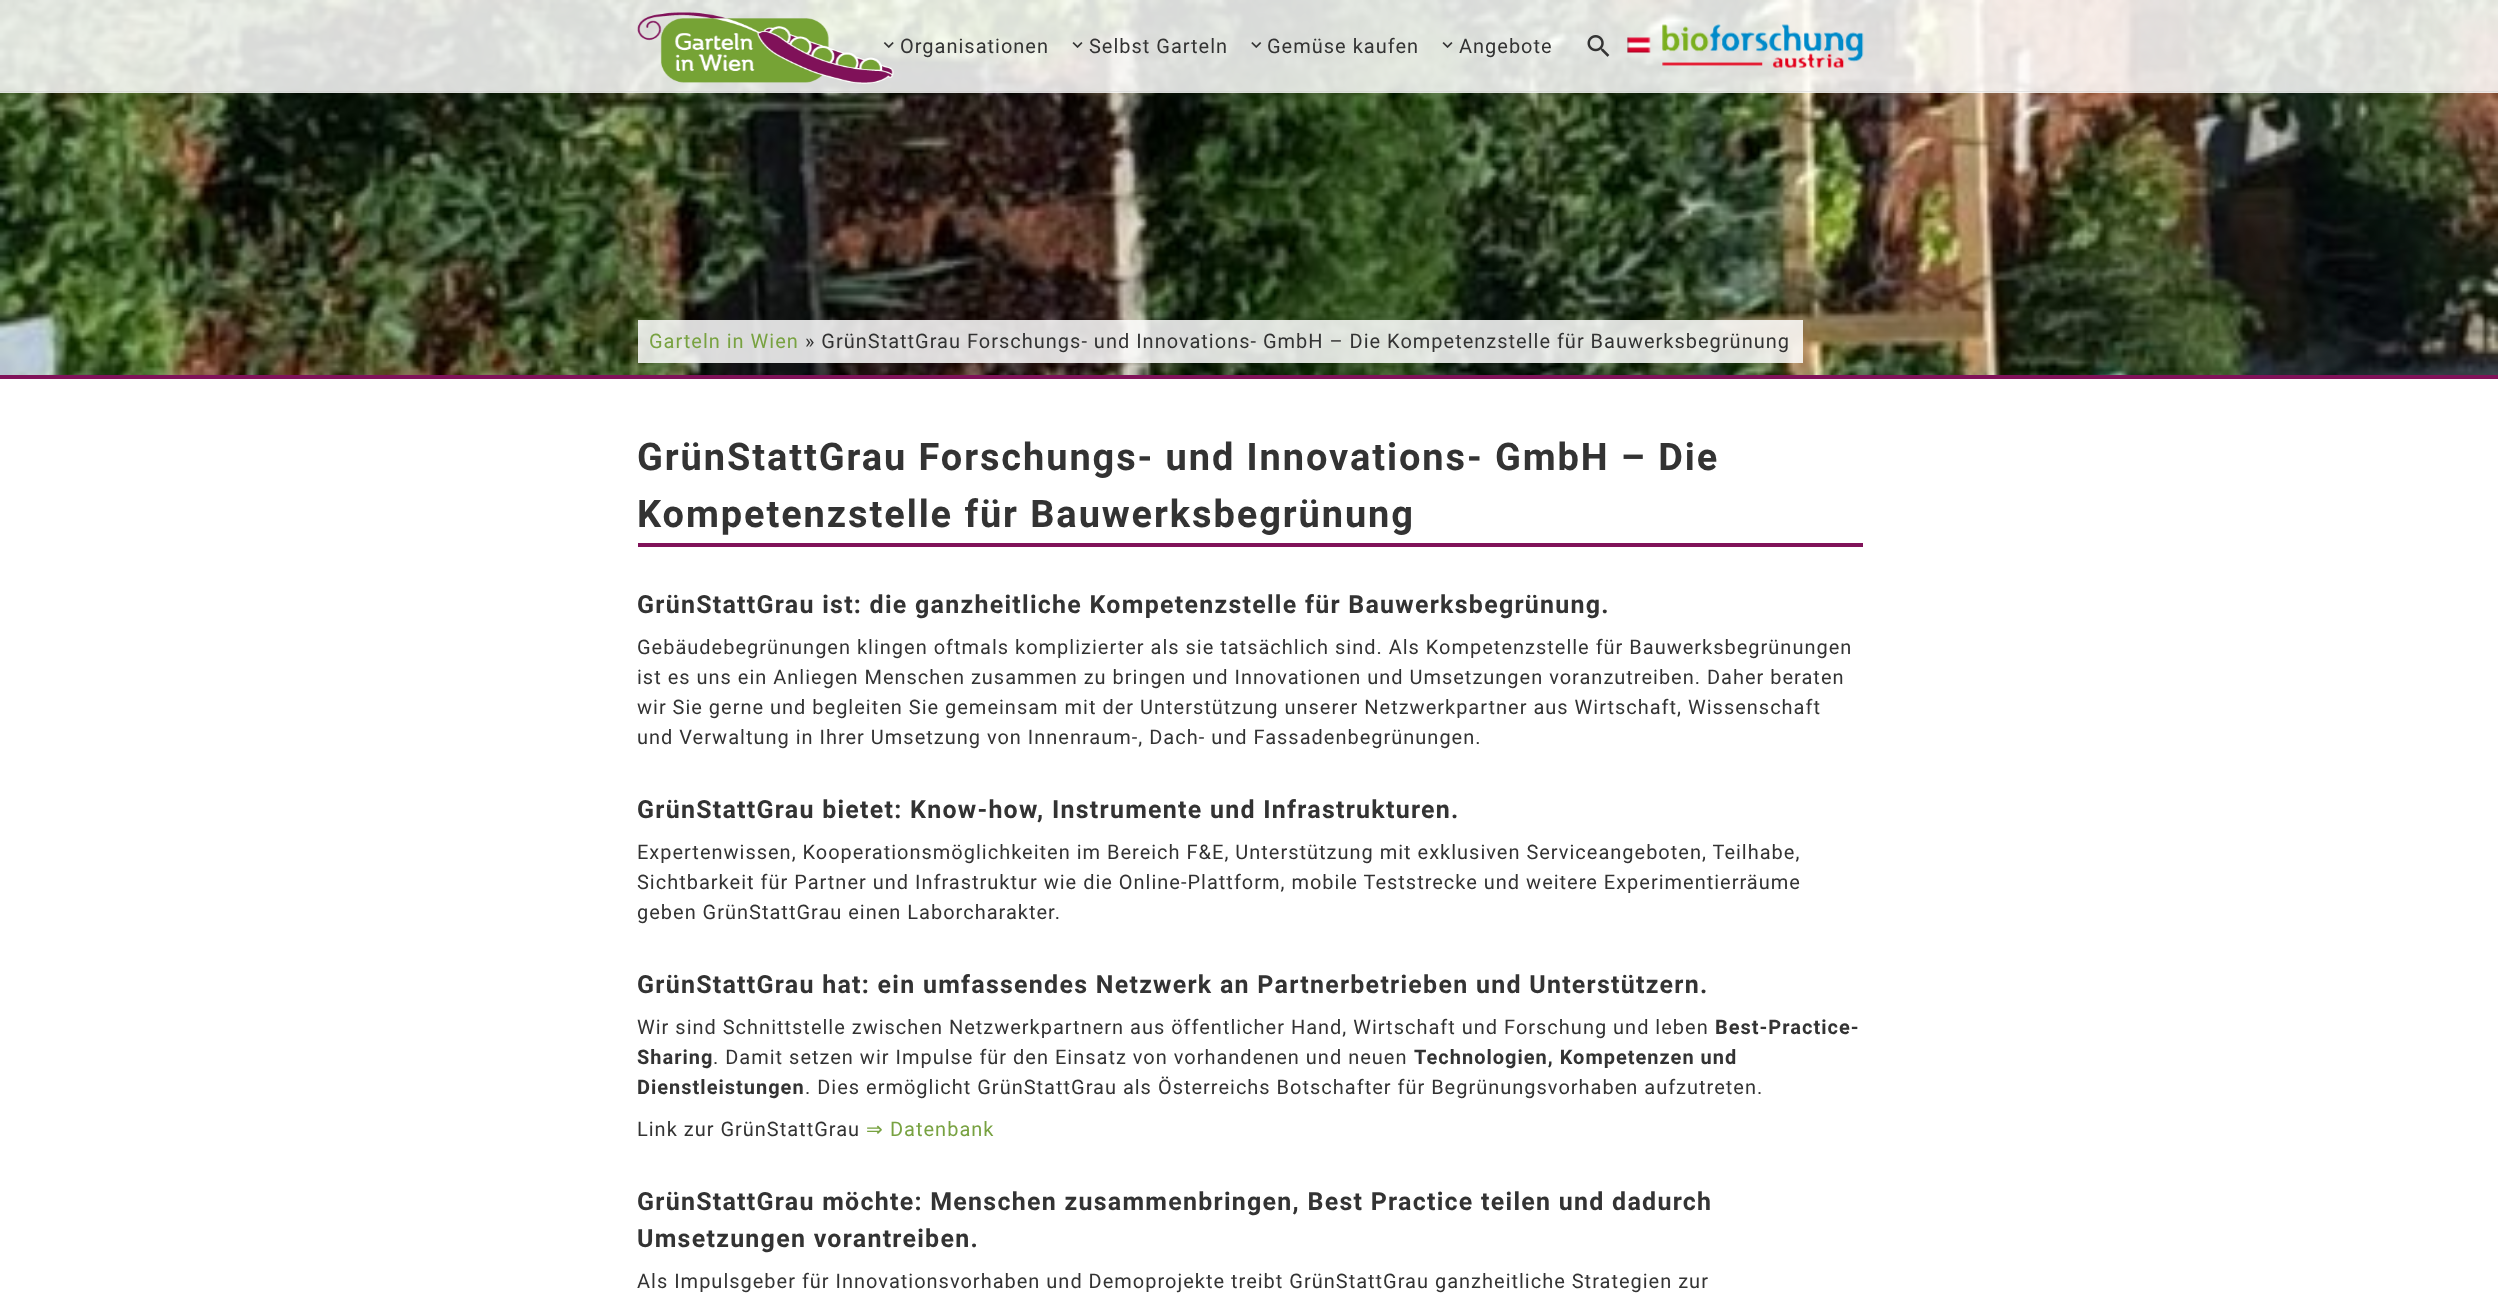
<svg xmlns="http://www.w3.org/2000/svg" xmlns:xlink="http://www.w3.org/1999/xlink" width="2498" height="1296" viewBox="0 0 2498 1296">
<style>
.cls-1{font:20px Roboto;letter-spacing:1px;fill:#333333}
.cls-2{font:20px Roboto;letter-spacing:1px;fill:#78a241}
.cls-3{font:bold 38px Roboto;letter-spacing:1.9px;fill:#333333}
.cls-4{font:bold 25px Roboto;letter-spacing:1.25px;fill:#333333}
.cls-5{font:bold 20px Roboto;letter-spacing:1px;fill:#333333}
.cls-6{font:20px DejaVu Sans;letter-spacing:1px;fill:#78a241}
</style>
<rect width="100%" height="100%" fill="#ffffff"/>
<image xlink:href="image8.png" x="0" y="0" width="2498" height="375"/>
<rect fill="#ffffff" fill-opacity="0.85" x="0" y="0" width="2498" height="93"/>
<rect fill="#c9c9c9" fill-opacity="0.4" x="0" y="91" width="2498" height="1"/>
<image xlink:href="image0.png" x="637" y="12" width="257" height="72"/>
<image xlink:href="image1.png" x="883" y="42" width="11" height="6"/>
<image xlink:href="image2.png" x="1072" y="42" width="11" height="6"/>
<image xlink:href="image3.png" x="1251" y="42" width="11" height="6"/>
<image xlink:href="image4.png" x="1442" y="42" width="11" height="6"/>
<image xlink:href="image5.png" x="1587" y="35" width="23" height="22"/>
<image xlink:href="image6.png" x="1627" y="37" width="24" height="16"/>
<image xlink:href="image7.png" x="1662" y="24" width="202" height="44"/>
<rect fill="#801259" x="0" y="375" width="2498" height="4"/>
<rect fill="#ffffff" fill-opacity="0.85" x="638" y="320" width="1165" height="43"/>
<rect fill="#801259" x="638" y="543" width="1225" height="4"/>
<text class="cls-1" x="900" y="53">Organisationen</text>
<text class="cls-1" x="1089" y="53">Selbst Garteln</text>
<text class="cls-1" x="1267" y="53">Gemüse kaufen</text>
<text class="cls-1" x="1459" y="53">Angebote</text>
<text class="cls-2" x="649" y="348">Garteln in Wien</text>
<text class="cls-1" x="805" y="348">» GrünStattGrau Forschungs- und Innovations- GmbH – Die Kompetenzstelle für Bauwerksbegrünung</text>
<text class="cls-3"><tspan x="637" y="470">GrünStattGrau Forschungs- und Innovations- GmbH – Die</tspan><tspan x="637" y="527">Kompetenzstelle für Bauwerksbegrünung</tspan></text>
<text class="cls-4" x="637" y="613">GrünStattGrau ist: die ganzheitliche Kompetenzstelle für Bauwerksbegrünung.</text>
<text class="cls-1"><tspan x="637" y="654">Gebäudebegrünungen klingen oftmals komplizierter als sie tatsächlich sind. Als Kompetenzstelle für Bauwerksbegrünungen</tspan><tspan x="637" y="684">ist es uns ein Anliegen Menschen zusammen zu bringen und Innovationen und Umsetzungen voranzutreiben. Daher beraten</tspan><tspan x="637" y="714">wir Sie gerne und begleiten Sie gemeinsam mit der Unterstützung unserer Netzwerkpartner aus Wirtschaft, Wissenschaft</tspan><tspan x="637" y="744">und Verwaltung in Ihrer Umsetzung von Innenraum-, Dach- und Fassadenbegrünungen.</tspan></text>
<text class="cls-4" x="637" y="818">GrünStattGrau bietet: Know-how, Instrumente und Infrastrukturen.</text>
<text class="cls-1"><tspan x="637" y="859">Expertenwissen, Kooperationsmöglichkeiten im Bereich F&amp;E, Unterstützung mit exklusiven Serviceangeboten, Teilhabe,</tspan><tspan x="637" y="889">Sichtbarkeit für Partner und Infrastruktur wie die Online-Plattform, mobile Teststrecke und weitere Experimentierräume</tspan><tspan x="637" y="919">geben GrünStattGrau einen Laborcharakter.</tspan></text>
<text class="cls-4" x="637" y="993">GrünStattGrau hat: ein umfassendes Netzwerk an Partnerbetrieben und Unterstützern.</text>
<text class="cls-1" x="637" y="1034">Wir sind Schnittstelle zwischen Netzwerkpartnern aus öffentlicher Hand, Wirtschaft und Forschung und leben</text>
<text class="cls-5" x="1715" y="1034">Best-Practice-</text>
<text class="cls-5" x="637" y="1064">Sharing</text>
<text class="cls-1" x="713" y="1064">. Damit setzen wir Impulse für den Einsatz von vorhandenen und neuen</text>
<text class="cls-5" x="1414" y="1064">Technologien, Kompetenzen und</text>
<text class="cls-5" x="637" y="1094">Dienstleistungen</text>
<text class="cls-1" x="805" y="1094">. Dies ermöglicht GrünStattGrau als Österreichs Botschafter für Begrünungsvorhaben aufzutreten.</text>
<text class="cls-1" x="637" y="1136">Link zur GrünStattGrau</text>
<text class="cls-6" x="866" y="1136">⇒</text>
<text class="cls-2" x="890" y="1136">Datenbank</text>
<text class="cls-4"><tspan x="637" y="1210">GrünStattGrau möchte: Menschen zusammenbringen, Best Practice teilen und dadurch</tspan><tspan x="637" y="1247">Umsetzungen vorantreiben.</tspan></text>
<text class="cls-1" x="637" y="1288">Als Impulsgeber für Innovationsvorhaben und Demoprojekte treibt GrünStattGrau ganzheitliche Strategien zur</text>
</svg>
